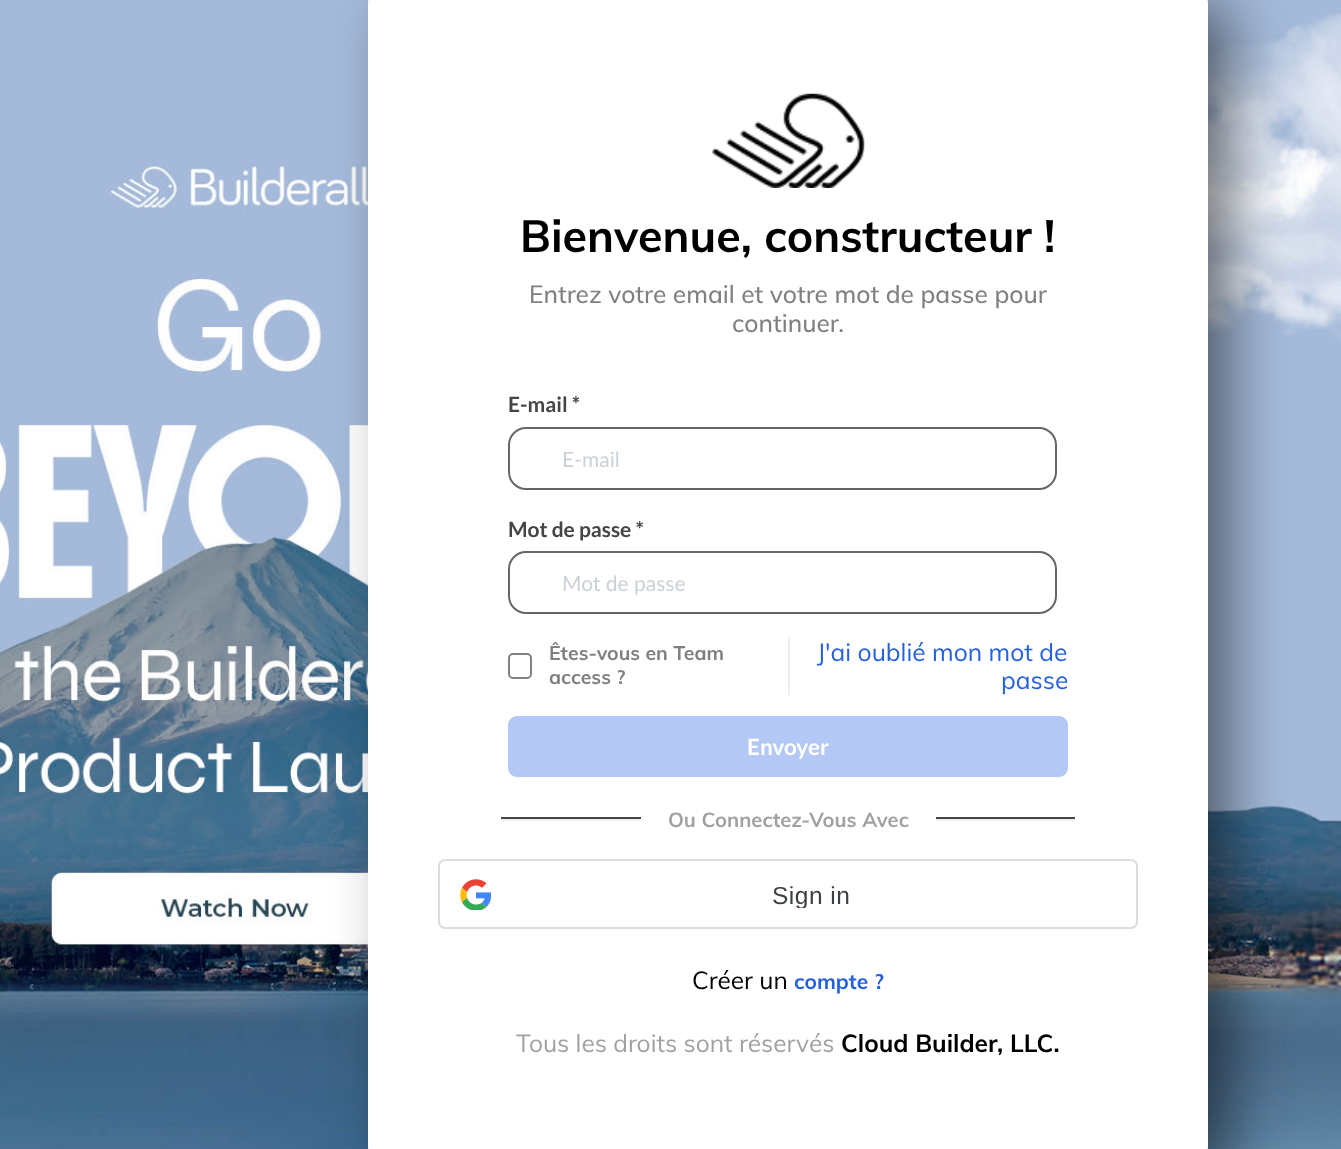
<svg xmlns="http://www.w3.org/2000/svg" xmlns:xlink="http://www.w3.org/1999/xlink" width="1341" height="1149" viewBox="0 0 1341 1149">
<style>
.cls-1{font:bold 44.75px Muli;fill:#000000}
.cls-2{font:500 24.6px Muli;fill:#808080}
.cls-3{font:bold 21px Lato;fill:#454545}
.cls-4{font:21px Lato;fill:#cad1d7}
.cls-5{font:bold 19.5px Muli;fill:#808080}
.cls-6{font:24.6px Muli;fill:#2560df}
.cls-7{font:bold 22.5px Lato;fill:#ffffff}
.cls-8{font:bold 20.2px Muli;fill:#a1a1a1}
.cls-9{font:24.5px Liberation Sans;letter-spacing:0.5px;fill:#3c4043}
.cls-10{font:24.5px Muli;fill:#000000}
.cls-11{font:bold 21px Muli;fill:#2560df}
.cls-12{font:24.5px Muli;fill:#a1a1a1}
.cls-13{font:bold 24.5px Muli;fill:#000000}
</style>
<defs>
<clipPath id="clip1"><rect x="506" y="880" width="609" height="28"/></clipPath>
</defs>
<rect width="100%" height="100%" fill="#ffffff"/>
<image xlink:href="image0.png" x="0" y="0" width="1341" height="1149"/>
<rect fill="#000000" fill-opacity="0.51" filter="blur(29px)" x="394" y="2" width="836" height="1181" rx="19"/>
<rect fill="#ffffff" x="368" y="-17" width="840" height="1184" rx="21"/>
<image xlink:href="image1.png" x="712" y="93" width="153" height="95"/>
<rect fill="none" stroke="#666666" stroke-width="2" x="509" y="428" width="547" height="61" rx="17"/>
<rect fill="none" stroke="#666666" stroke-width="2" x="509" y="552" width="547" height="61" rx="17"/>
<rect fill="none" stroke="#808080" stroke-width="2" x="509" y="654" width="22" height="24" rx="4"/>
<rect fill="#eeeeee" x="788" y="637" width="2" height="58"/>
<rect fill="#b3c8f4" x="508" y="716" width="560" height="61" rx="9"/>
<rect fill="#454545" x="501" y="817" width="140" height="2"/>
<rect fill="#eeeeee" x="501" y="819" width="140" height="2"/>
<rect fill="#454545" x="936" y="817" width="139" height="2"/>
<rect fill="#eeeeee" x="936" y="819" width="139" height="2"/>
<rect fill="none" stroke="#dadce0" stroke-width="2" x="439" y="860" width="698" height="68" rx="6"/>
<image xlink:href="image2.png" x="460" y="879" width="32" height="31"/>
<text class="cls-1" x="520" y="252">Bienvenue, constructeur !</text>
<text class="cls-2" x="529" y="303">Entrez votre email et votre mot de passe pour</text>
<text class="cls-2" x="732" y="332">continuer.</text>
<text class="cls-3" x="508" y="412">E-mail *</text>
<text class="cls-4" x="562" y="467">E-mail</text>
<text class="cls-3" x="508" y="537">Mot de passe *</text>
<text class="cls-4" x="562" y="591">Mot de passe</text>
<text class="cls-5"><tspan x="549" y="660">Êtes-vous en Team</tspan><tspan x="549" y="684">access ?</tspan></text>
<text class="cls-6" x="817" y="661">J'ai oublié mon mot de</text>
<text class="cls-6" x="1001" y="689">passe</text>
<text class="cls-7" x="747" y="755">Envoyer</text>
<text class="cls-8" x="668" y="827">Ou Connectez-Vous Avec</text>
<g clip-path="url(#clip1)">
<text class="cls-9" x="772" y="904">Sign in</text>
</g>
<text class="cls-10" x="692" y="989">Créer un</text>
<text class="cls-11" x="794" y="989">compte ?</text>
<text class="cls-12" x="516" y="1052">Tous les droits sont réservés</text>
<text class="cls-13" x="841" y="1052">Cloud Builder, LLC.</text>
</svg>
